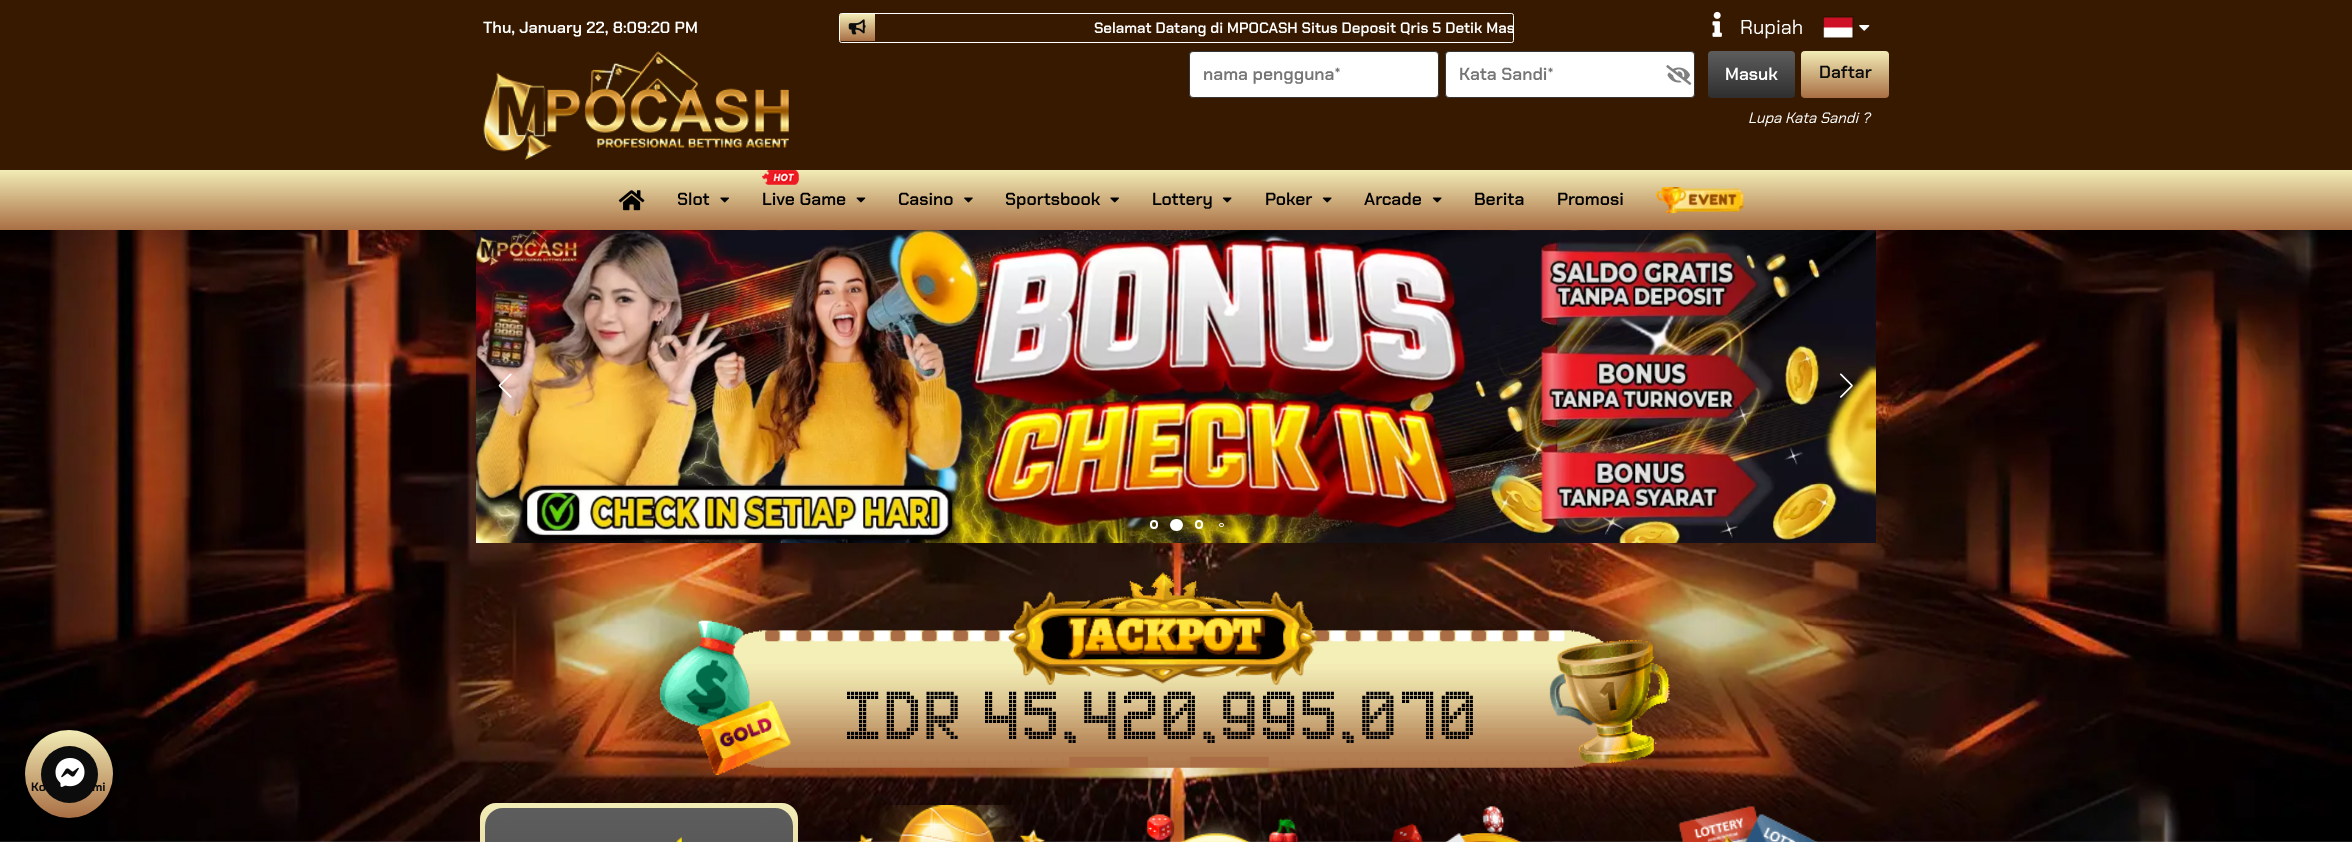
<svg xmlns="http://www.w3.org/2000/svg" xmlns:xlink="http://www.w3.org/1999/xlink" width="2352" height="842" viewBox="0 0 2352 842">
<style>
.cls-1{font:600 16.25px Chakra Petch;fill:#ffffff}
.cls-2{font:600 15px Chakra Petch;fill:#ffffff}
.cls-3{font:20px Chakra Petch;fill:#ffffff}
.cls-4{font:600 17.5px Chakra Petch;fill:#757575}
.cls-5{font:600 17.5px Chakra Petch;fill:#ffffff}
.cls-6{font:600 17.5px Chakra Petch;fill:#0c0c0c}
.cls-7{font:italic 15px Chakra Petch;fill:#ffffff}
.cls-8{font:600 17.5px Chakra Petch;fill:#000000}
.cls-9{font:bold 40px 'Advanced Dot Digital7';letter-spacing:3.75px;fill:#000000}
.cls-10{font:bold 12px Chakra Petch;fill:#0c0c0c}
</style>
<defs>
<linearGradient id="g1" gradientUnits="userSpaceOnUse" x1="858" y1="14" x2="858" y2="41"><stop offset="0" stop-color="#f2ecb6"/><stop offset="1" stop-color="#a96f44"/></linearGradient>
<linearGradient id="g2" gradientUnits="userSpaceOnUse" x1="1751" y1="51" x2="1751" y2="98"><stop offset="0" stop-color="#5d5d5d"/><stop offset="1" stop-color="#2e2e2e"/></linearGradient>
<linearGradient id="g3" gradientUnits="userSpaceOnUse" x1="1845" y1="51" x2="1845" y2="98"><stop offset="0" stop-color="#f2ecb6"/><stop offset="1" stop-color="#a96f44"/></linearGradient>
<linearGradient id="g4" gradientUnits="userSpaceOnUse" x1="1176" y1="170" x2="1176" y2="230"><stop offset="0" stop-color="#f2ecb6"/><stop offset="1" stop-color="#a96f44"/></linearGradient>
<linearGradient id="g5" gradientUnits="userSpaceOnUse" x1="1115" y1="803" x2="1115" y2="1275"><stop offset="0" stop-color="#f2ecb6"/><stop offset="1" stop-color="#a96f44"/></linearGradient>
<linearGradient id="g6" gradientUnits="userSpaceOnUse" x1="639" y1="808" x2="639" y2="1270"><stop offset="0" stop-color="#5d5d5d"/><stop offset="1" stop-color="#2e2e2e"/></linearGradient>
<linearGradient id="g7" gradientUnits="userSpaceOnUse" x1="69" y1="730" x2="69" y2="818"><stop offset="0" stop-color="#f2ecb6"/><stop offset="1" stop-color="#a96f44"/></linearGradient>
<clipPath id="clip1"><rect x="875" y="16" width="638" height="23"/></clipPath>
</defs>
<rect width="100%" height="100%" fill="#ffffff"/>
<rect fill="#371900" x="0" y="0" width="2352" height="170"/>
<rect fill="none" stroke="#ffffff" x="839.5" y="13.5" width="674" height="29" rx="2"/>
<rect fill="url(#g1)" x="840" y="14" width="35" height="27"/>
<image xlink:href="image0.png" x="848" y="19" width="18" height="16"/>
<image xlink:href="image1.png" x="1712" y="11" width="10" height="26"/>
<rect fill="none" stroke="#2c1400" x="1823.5" y="16.5" width="30" height="22"/>
<image xlink:href="image2.png" x="1823" y="17" width="30" height="21"/>
<image xlink:href="image3.png" x="1859" y="25" width="11" height="6"/>
<image xlink:href="image4.png" x="483" y="51" width="307" height="109"/>
<rect fill="#ffffff" stroke="#363636" x="1189.5" y="51.5" width="249" height="46" rx="3.5"/>
<rect fill="#ffffff" stroke="#363636" x="1445.5" y="51.5" width="249" height="46" rx="3.5"/>
<image xlink:href="image5.png" x="1666" y="65" width="26" height="20"/>
<rect fill="url(#g2)" x="1708" y="51" width="87" height="47" rx="4"/>
<rect fill="url(#g3)" x="1801" y="51" width="88" height="47" rx="4"/>
<rect fill="url(#g4)" x="0" y="170" width="2352" height="60"/>
<image xlink:href="image6.png" x="618" y="190" width="27" height="21"/>
<image xlink:href="image7.png" x="720" y="197" width="9" height="6"/>
<image xlink:href="image8.png" x="762" y="170" width="37" height="15"/>
<image xlink:href="image9.png" x="856" y="197" width="10" height="6"/>
<image xlink:href="image10.png" x="964" y="197" width="9" height="6"/>
<image xlink:href="image7.png" x="1110" y="197" width="9" height="6"/>
<image xlink:href="image11.png" x="1222" y="197" width="10" height="6"/>
<image xlink:href="image11.png" x="1322" y="197" width="10" height="6"/>
<image xlink:href="image11.png" x="1432" y="197" width="10" height="6"/>
<image xlink:href="image12.png" x="1655" y="187" width="89" height="27"/>
<image xlink:href="image13.png" x="0" y="230" width="2352" height="612"/>
<image xlink:href="image14.png" x="476" y="230" width="1400" height="313"/>
<image xlink:href="image15.png" x="498" y="373" width="14" height="25"/>
<image xlink:href="image16.png" x="1840" y="373" width="13" height="25"/>
<rect fill="none" stroke="#ffffff" stroke-width="2" x="1151" y="521" width="6" height="7" rx="3"/>
<rect fill="#ffffff" stroke="#ffffff" stroke-width="3" x="1171.5" y="520.5" width="10" height="9" rx="4.5"/>
<rect fill="none" stroke="#ffffff" stroke-width="2" x="1196" y="521" width="6" height="7" rx="3"/>
<rect fill="none" stroke="#ffffff" stroke-width="0.9" x="1219.45" y="523.45" width="4.1" height="3.1" rx="1.55"/>
<image xlink:href="image17.png" x="659" y="572" width="1011" height="203"/>
<rect fill="url(#g5)" x="480" y="803" width="318" height="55" rx="16"/>
<rect fill="url(#g6)" x="485" y="808" width="308" height="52" rx="18"/>
<image xlink:href="image18.png" x="676" y="837" width="6" height="5"/>
<image xlink:href="image19.png" x="857" y="805" width="188" height="37"/>
<image xlink:href="image20.png" x="1147" y="814" width="152" height="28"/>
<image xlink:href="image21.png" x="1391" y="806" width="170" height="36"/>
<image xlink:href="image22.png" x="1678" y="806" width="140" height="36"/>
<circle fill="url(#g7)" cx="69" cy="774" r="44"/>
<circle fill="#0c0c0c" cx="69.5" cy="774.5" r="28.5"/>
<image xlink:href="image23.png" x="55" y="758" width="30" height="29"/>
<text class="cls-1" x="483" y="33">Thu, January 22, 8:09:20 PM</text>
<g clip-path="url(#clip1)">
<text class="cls-2" x="1094" y="33">Selamat Datang di MPOCASH Situs Deposit Qris 5 Detik Mas</text>
</g>
<text class="cls-3" x="1740" y="34">Rupiah</text>
<text class="cls-4" x="1203" y="80">nama pengguna*</text>
<text class="cls-4" x="1459" y="80">Kata Sandi*</text>
<text class="cls-5" x="1725" y="80">Masuk</text>
<text class="cls-6" x="1819" y="78">Daftar</text>
<text class="cls-7" x="1748" y="123">Lupa Kata Sandi ?</text>
<text class="cls-8" x="677" y="205">Slot</text>
<text class="cls-8" x="762" y="205">Live Game</text>
<text class="cls-8" x="898" y="205">Casino</text>
<text class="cls-8" x="1005" y="205">Sportsbook</text>
<text class="cls-8" x="1152" y="205">Lottery</text>
<text class="cls-8" x="1265" y="205">Poker</text>
<text class="cls-8" x="1364" y="205">Arcade</text>
<text class="cls-8" x="1474" y="205">Berita</text>
<text class="cls-8" x="1557" y="205">Promosi</text>
<text class="cls-9" x="847" y="739">IDR</text>
<text class="cls-9" x="985" y="739">45,420,995,070</text>
<text class="cls-10" x="31" y="791">Ko</text>
<text class="cls-10" x="92" y="791">mi</text>
</svg>
